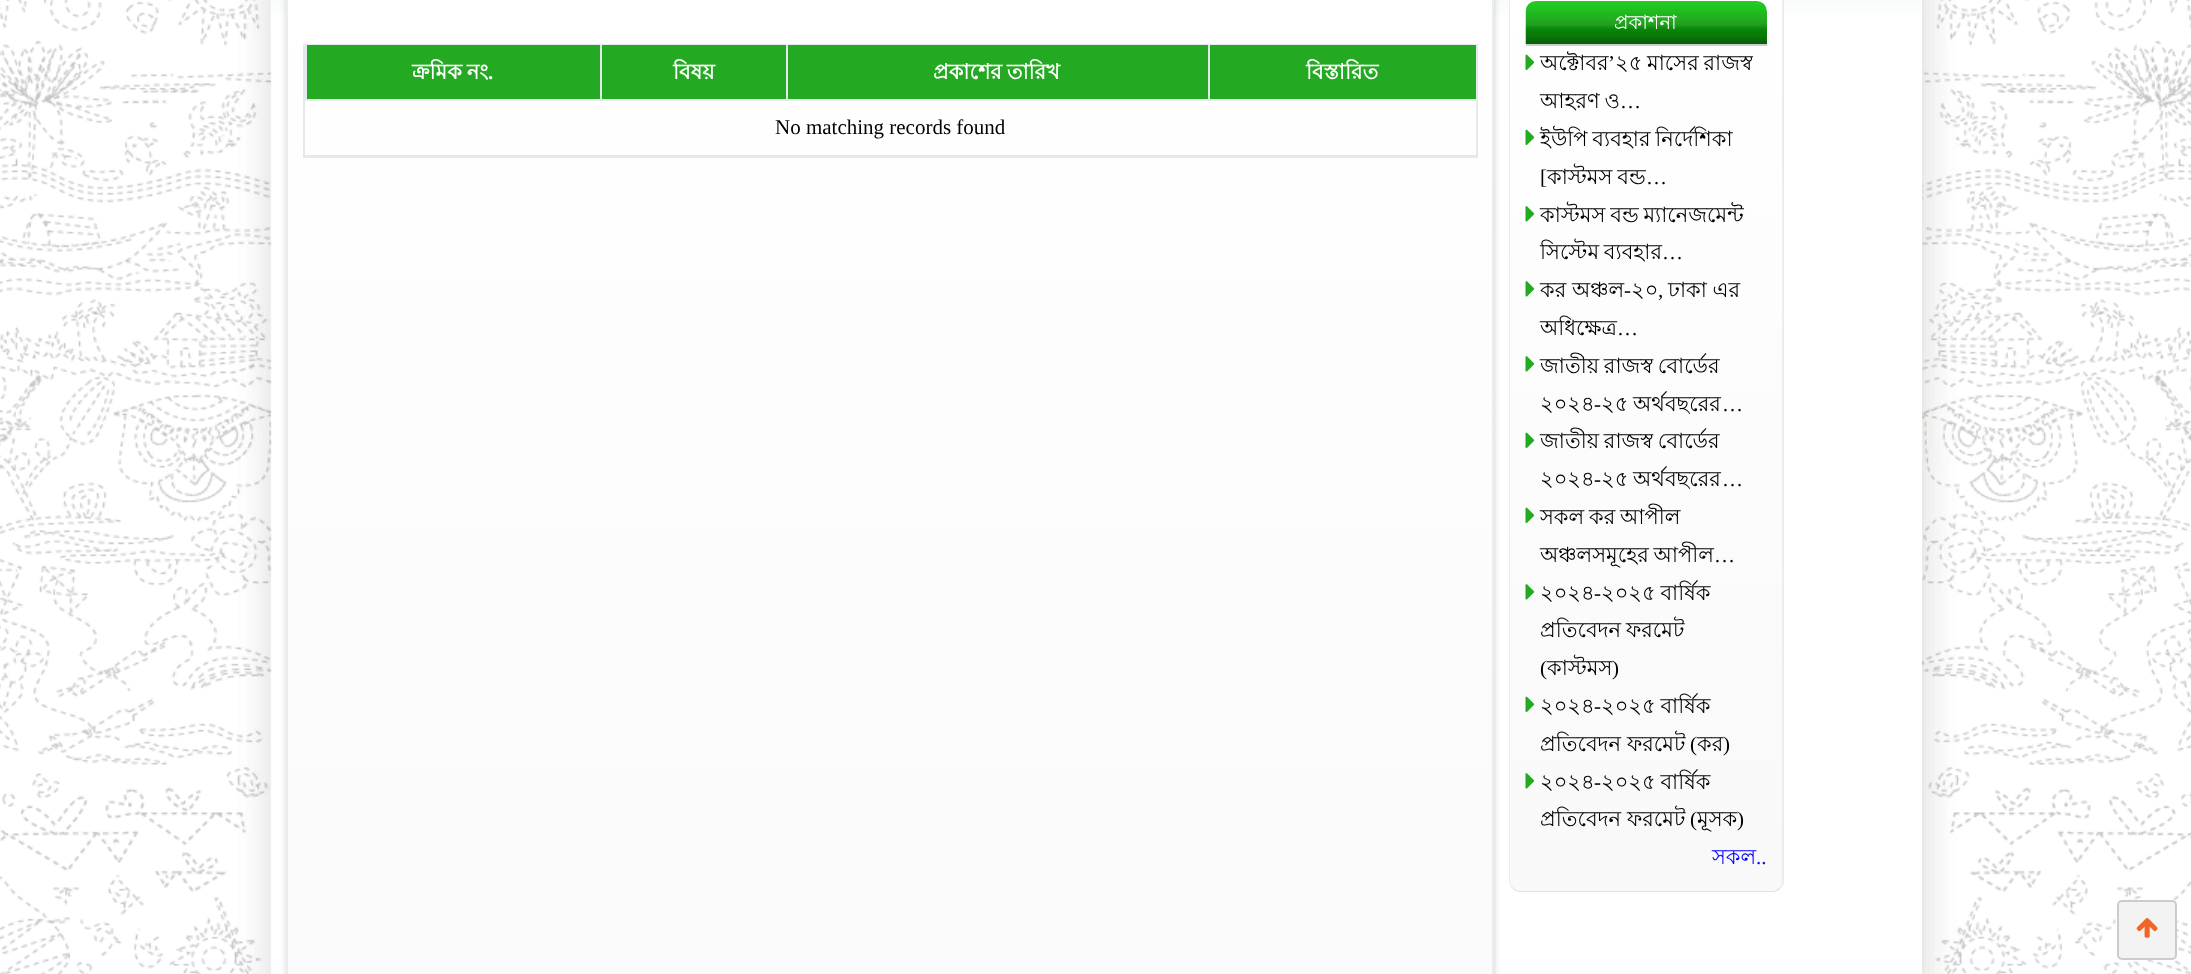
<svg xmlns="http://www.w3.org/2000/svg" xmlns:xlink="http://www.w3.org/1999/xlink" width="2191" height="974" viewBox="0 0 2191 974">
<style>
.cls-1{font:bold 21px Lohit Bengali;fill:#ffffff}
.cls-2{font:bold 21px Liberation Serif;fill:#ffffff}
.cls-3{font:21px Liberation Serif;fill:#000000}
.cls-4{font:19.5px Lohit Bengali;fill:#ffffff}
.cls-5{font:21px Lohit Bengali;fill:#000000}
.cls-6{font:21px Lohit Bengali;fill:#0000ff}
.cls-7{font:21px Liberation Serif;fill:#0000ff}
</style>
<defs>
<linearGradient id="g1" gradientUnits="userSpaceOnUse" x1="890" y1="-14" x2="890" y2="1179"><stop offset="0.01" stop-color="#ffffff"/><stop offset="0.98" stop-color="#f9f9f9"/></linearGradient>
<linearGradient id="g2" gradientUnits="userSpaceOnUse" x1="1646" y1="-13" x2="1646" y2="891"><stop offset="0.01" stop-color="#ffffff"/><stop offset="0.98" stop-color="#f9f9f9"/></linearGradient>
</defs>
<rect width="100%" height="100%" fill="#ffffff"/>
<image xlink:href="image0.png" x="0" y="0" width="2191" height="974"/>
<rect fill="#ffffff" x="272" y="0" width="1650" height="974"/>
<image xlink:href="image1.png" x="271" y="0" width="1651" height="74"/>
<rect fill="#000000" fill-opacity="0.4" filter="blur(5px)" x="290" y="-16" width="1201" height="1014" rx="9"/>
<path fill="url(#g1)" d="M298-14H1482C1488-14 1492-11 1492-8V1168C1492 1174 1488 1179 1482 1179H298C293 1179 288 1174 288 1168V-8C288-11 293-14 298-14Z"/>
<path fill="#ececec" d="M1494 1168V-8C1494-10 1493-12 1493-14L1492-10V-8V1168C1492 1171 1491 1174 1489 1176L1490 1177C1493 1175 1494 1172 1494 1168Z"/>
<path fill="#ececec" d="M286-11L288-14L289-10L288-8V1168C288 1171 289 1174 291 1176L290 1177C288 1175 287 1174 286 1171Z"/>
<rect fill="none" stroke="#e4eaec" stroke-width="2" x="304" y="45" width="1173" height="112"/>
<rect fill="#e4eaec" x="305" y="155" width="1171" height="1"/>
<rect fill="#23a922" x="307" y="45" width="293" height="54"/>
<rect fill="#e4eaec" x="1208" y="99" width="268" height="2"/>
<rect fill="#e4eaec" x="1208" y="45" width="2" height="56"/>
<rect fill="#e4eaec" x="786" y="99" width="423" height="2"/>
<rect fill="#e4eaec" x="786" y="45" width="2" height="56"/>
<rect fill="#e4eaec" x="600" y="99" width="188" height="2"/>
<rect fill="#e4eaec" x="600" y="45" width="2" height="56"/>
<rect fill="#e4eaec" x="305" y="99" width="297" height="2"/>
<rect fill="#e4eaec" x="305" y="45" width="2" height="56"/>
<rect fill="#23a922" x="602" y="45" width="184" height="54"/>
<rect fill="#23a922" x="788" y="45" width="420" height="54"/>
<rect fill="#23a922" x="1210" y="45" width="266" height="54"/>
<path fill="url(#g2)" d="M1521-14H1772C1777-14 1782-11 1782-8V880C1782 886 1777 891 1772 891H1521C1515 891 1510 886 1510 880V-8C1510-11 1515-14 1521-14Z"/>
<path fill="#ececec" d="M1784 883C1783 886 1782 887 1780 889L1779 888C1781 886 1782 883 1782 880V-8L1781-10L1782-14L1784-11Z"/>
<path fill="#dfdfdf" d="M1780 889C1778 891 1775 892 1772 892H1521C1518 892 1515 891 1513 889L1514 888C1515 890 1518 891 1521 891H1772C1774 891 1777 890 1779 888Z"/>
<path fill="#ececec" d="M1509-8V880C1509 884 1510 887 1513 889L1514 888C1511 886 1510 883 1510 880V-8C1510-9 1510-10 1511-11L1510-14C1510-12 1509-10 1509-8Z"/>
<image xlink:href="image2.png" x="1525" y="1" width="242" height="44"/>
<rect fill="#cccccc" x="1526" y="44" width="241" height="2"/>
<image xlink:href="image3.png" x="1525" y="54" width="10" height="17"/>
<image xlink:href="image4.png" x="1525" y="129" width="10" height="17"/>
<image xlink:href="image5.png" x="1525" y="206" width="10" height="16"/>
<image xlink:href="image6.png" x="1525" y="281" width="10" height="16"/>
<image xlink:href="image7.png" x="1525" y="356" width="10" height="16"/>
<image xlink:href="image8.png" x="1525" y="432" width="10" height="17"/>
<image xlink:href="image9.png" x="1525" y="507" width="10" height="17"/>
<image xlink:href="image10.png" x="1525" y="584" width="10" height="16"/>
<image xlink:href="image11.png" x="1525" y="696" width="10" height="17"/>
<image xlink:href="image12.png" x="1525" y="773" width="10" height="16"/>
<rect fill="#f3f3f3" stroke="#cccccc" stroke-width="2" x="2118" y="901" width="58" height="58" rx="4"/>
<image xlink:href="image13.png" x="2136" y="918" width="22" height="20"/>
<text class="cls-1" x="412" y="79" word-spacing="-1">ক্রমিক নং</text>
<text class="cls-2" x="488" y="79">.</text>
<text class="cls-1" x="673" y="79">বিষয়</text>
<text class="cls-1" x="933" y="79" word-spacing="-1">প্রকাশের তারিখ</text>
<text class="cls-1" x="1306" y="79">বিস্তারিত</text>
<text class="cls-3" x="775" y="134">No matching records found</text>
<text class="cls-4" x="1614" y="29">প্রকাশনা</text>
<text class="cls-5" x="1540" y="70">অক্টোবর</text>
<text class="cls-3" x="1608" y="70">’</text>
<text class="cls-5" x="1615" y="70" word-spacing="-1">২৫ মাসের রাজস্ব</text>
<text class="cls-5" x="1540" y="108" word-spacing="-1">আহরণ ও</text>
<text class="cls-3" x="1620" y="108">…</text>
<text class="cls-5" x="1540" y="146" word-spacing="-1">ইউপি ব্যবহার নির্দেশিকা</text>
<text class="cls-3" x="1540" y="184">[</text>
<text class="cls-5" x="1547" y="184" word-spacing="-1">কাস্টমস বন্ড</text>
<text class="cls-3" x="1646" y="184">…</text>
<text class="cls-5"><tspan x="1540" y="222" word-spacing="-1">কাস্টমস বন্ড ম্যানেজমেন্ট</tspan><tspan x="1540" y="259" word-spacing="-1">সিস্টেম ব্যবহার</tspan></text>
<text class="cls-3" x="1662" y="259">…</text>
<text class="cls-5" x="1540" y="297">কর অঞ্চল</text>
<text class="cls-3" x="1624" y="297">-</text>
<text class="cls-5" x="1631" y="297">২০</text>
<text class="cls-5" x="1668" y="297">ঢাকা এর</text>
<text class="cls-3" x="1658" y="297">,</text>
<text class="cls-5" x="1540" y="335">অধিক্ষেত্র</text>
<text class="cls-3" x="1617" y="335">…</text>
<text class="cls-5"><tspan x="1540" y="373" word-spacing="-1">জাতীয় রাজস্ব বোর্ডের</tspan><tspan x="1540" y="411">২০২৪</tspan></text>
<text class="cls-3" x="1594" y="411">-</text>
<text class="cls-5" x="1601" y="411" word-spacing="-1">২৫ অর্থবছরের</text>
<text class="cls-3" x="1722" y="411">…</text>
<text class="cls-5"><tspan x="1540" y="448" word-spacing="-1">জাতীয় রাজস্ব বোর্ডের</tspan><tspan x="1540" y="486">২০২৪</tspan></text>
<text class="cls-3" x="1594" y="486">-</text>
<text class="cls-5" x="1601" y="486" word-spacing="-1">২৫ অর্থবছরের</text>
<text class="cls-3" x="1722" y="486">…</text>
<text class="cls-5"><tspan x="1540" y="524" word-spacing="-1">সকল কর আপীল</tspan><tspan x="1540" y="562" word-spacing="-1">অঞ্চলসমূহের আপীল</tspan></text>
<text class="cls-3" x="1714" y="562">…</text>
<text class="cls-5" x="1540" y="600">২০২৪</text>
<text class="cls-3" x="1594" y="600">-</text>
<text class="cls-5" x="1601" y="600" word-spacing="-1">২০২৫ বার্ষিক</text>
<text class="cls-5" x="1540" y="637" word-spacing="-1">প্রতিবেদন ফরমেট</text>
<text class="cls-3" x="1540" y="675">(</text>
<text class="cls-5" x="1547" y="675">কাস্টমস</text>
<text class="cls-3" x="1612" y="675">)</text>
<text class="cls-5" x="1540" y="713">২০২৪</text>
<text class="cls-3" x="1594" y="713">-</text>
<text class="cls-5" x="1601" y="713" word-spacing="-1">২০২৫ বার্ষিক</text>
<text class="cls-5" x="1540" y="751">প্রতিবেদন ফরমেট</text>
<text class="cls-3" x="1690" y="751">(</text>
<text class="cls-5" x="1697" y="751">কর</text>
<text class="cls-3" x="1723" y="751">)</text>
<text class="cls-5" x="1540" y="789">২০২৪</text>
<text class="cls-3" x="1594" y="789">-</text>
<text class="cls-5" x="1601" y="789" word-spacing="-1">২০২৫ বার্ষিক</text>
<text class="cls-5" x="1540" y="826">প্রতিবেদন ফরমেট</text>
<text class="cls-3" x="1690" y="826">(</text>
<text class="cls-5" x="1697" y="826">মূসক</text>
<text class="cls-3" x="1737" y="826">)</text>
<text class="cls-6" x="1712" y="864">সকল</text>
<text class="cls-7" x="1756" y="864">..</text>
</svg>
